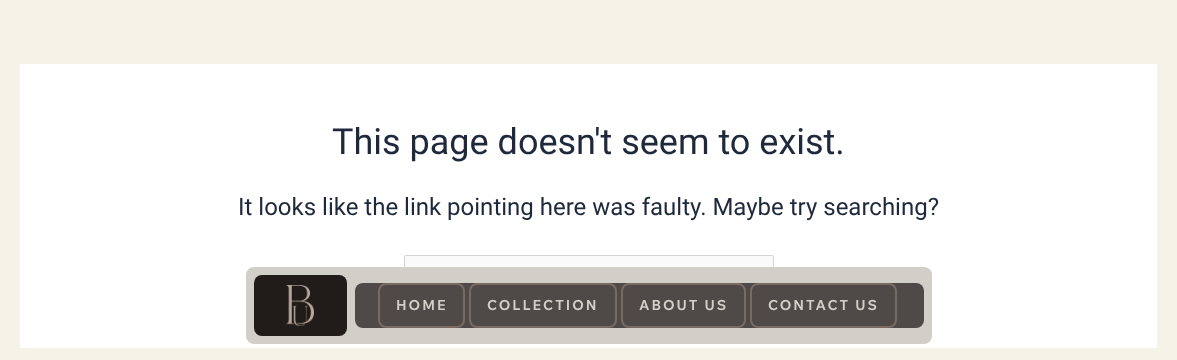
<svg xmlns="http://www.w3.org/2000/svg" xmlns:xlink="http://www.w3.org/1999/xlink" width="1177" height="360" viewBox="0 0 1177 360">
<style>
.cls-1{font:36px Roboto;fill:#1e293b}
.cls-2{font:24px Roboto;fill:#1e293b}
.cls-3{font:bold 14px Wix Madefor Text;letter-spacing:2px;fill:#d1cfc7}
</style>
<rect width="100%" height="100%" fill="#f5f2e8"/>
<rect fill="#ffffff" x="20" y="64" width="1137" height="284"/>
<rect fill="#fafafa" stroke="#d1d5db" x="404.5" y="255.5" width="369" height="39" rx="1.5"/>
<rect fill="#d1cfc7" x="246" y="267" width="686" height="77" rx="8"/>
<rect fill="#211c19" x="254" y="275" width="93" height="61" rx="8"/>
<image xlink:href="image0.png" x="286" y="285" width="28" height="41"/>
<rect fill="#4f4a47" x="355" y="283" width="569" height="45" rx="8"/>
<rect fill="none" stroke="#776b64" stroke-width="2" x="379" y="284" width="85" height="43" rx="7"/>
<rect fill="none" stroke="#776b64" stroke-width="2" x="470" y="284" width="146" height="43" rx="7"/>
<rect fill="none" stroke="#776b64" stroke-width="2" x="622" y="284" width="123" height="43" rx="7"/>
<rect fill="none" stroke="#776b64" stroke-width="2" x="751" y="284" width="145" height="43" rx="7"/>
<text class="cls-1" x="332" y="154">This page doesn't seem to exist.</text>
<text class="cls-2" x="238" y="215">It looks like the link pointing here was faulty. Maybe try searching?</text>
<text class="cls-3" x="396" y="310">HOME</text>
<text class="cls-3" x="487" y="310">COLLECTION</text>
<text class="cls-3" x="639" y="310">ABOUT US</text>
<text class="cls-3" x="768" y="310">CONTACT US</text>
</svg>
